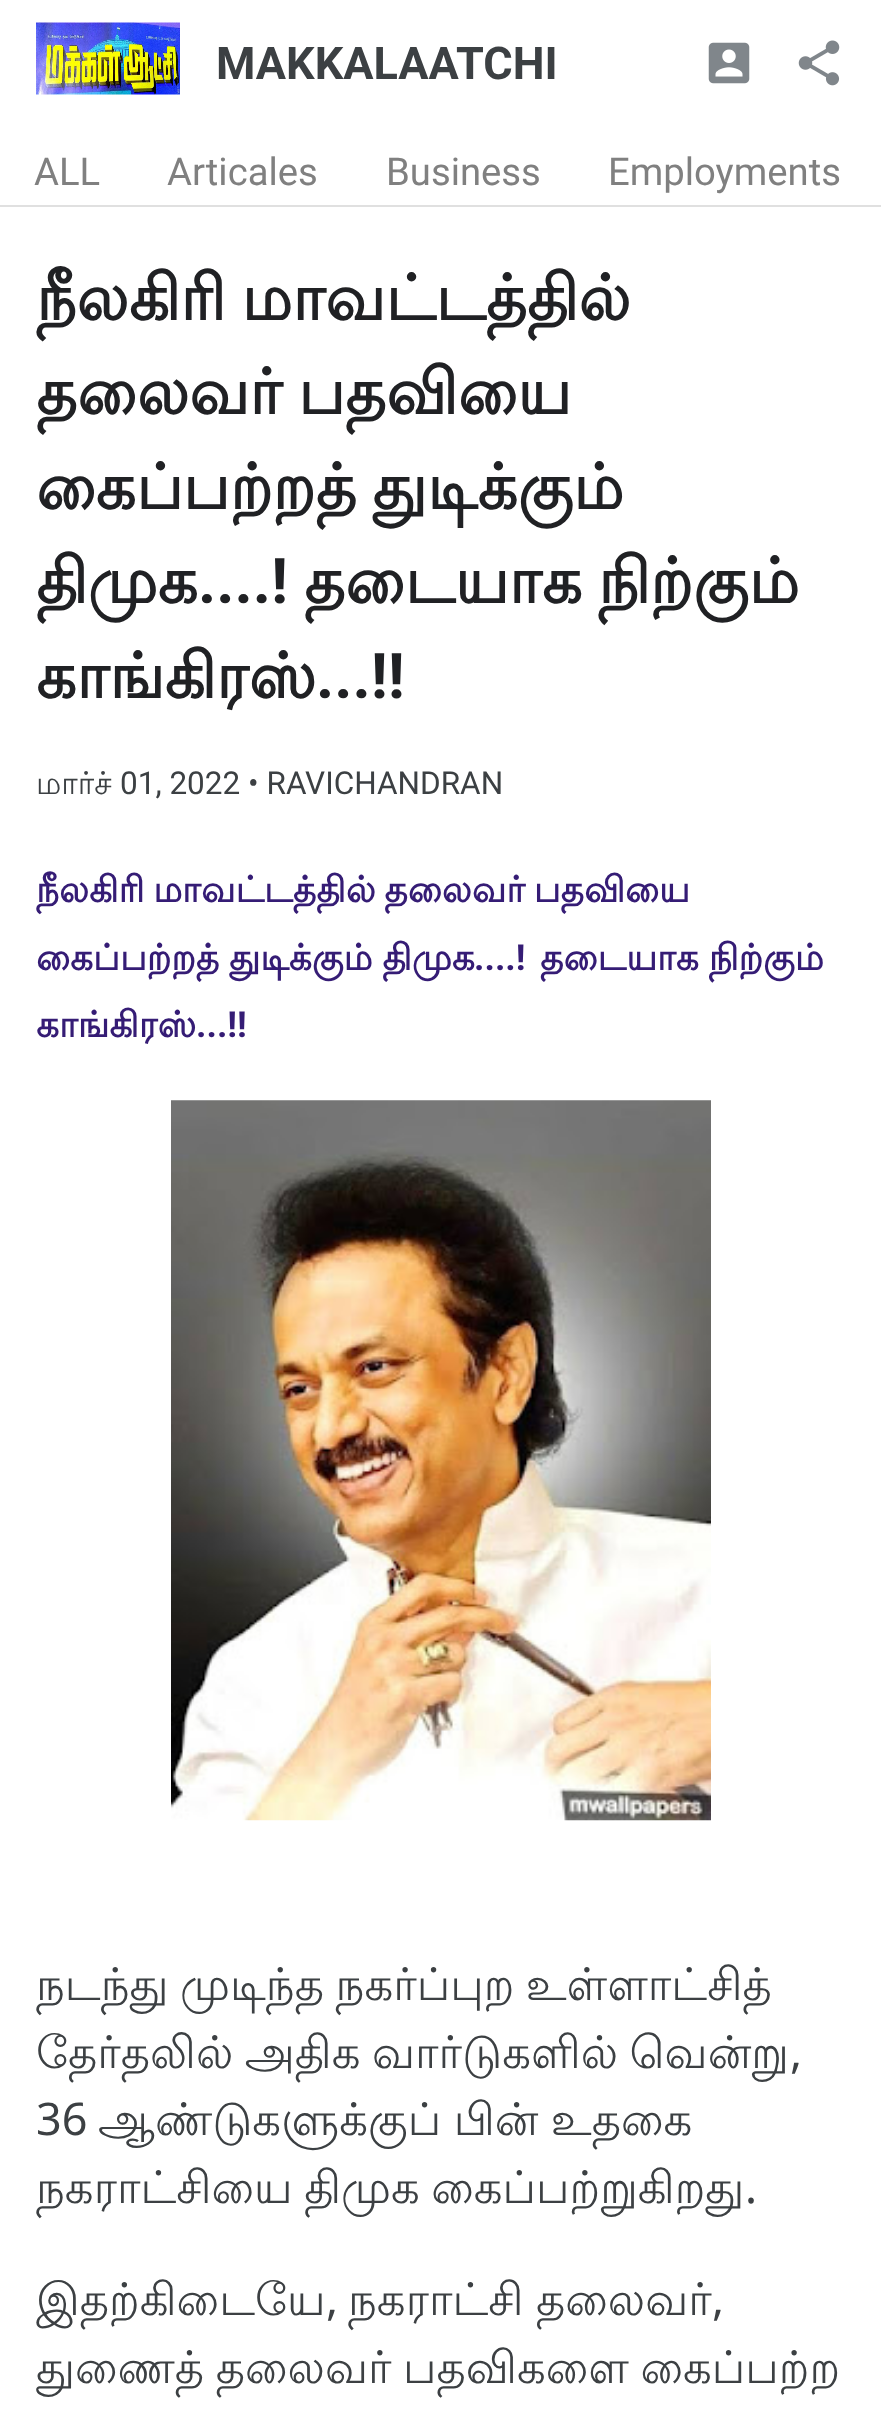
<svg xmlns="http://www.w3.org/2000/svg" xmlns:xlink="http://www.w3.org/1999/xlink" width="881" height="2434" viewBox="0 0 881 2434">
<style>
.cls-1{font:bold 45px Roboto;fill:#3c4043}
.cls-2{font:38.25px Roboto;fill:#808080}
.cls-3{font:bold 63px Lohit Tamil;fill:#202124}
.cls-4{font:bold 63px Roboto;fill:#202124}
.cls-5{font:31.5px Lohit Tamil;fill:#3c4043}
.cls-6{font:31.5px Roboto;fill:#3c4043}
.cls-7{font:bold 36px Lohit Tamil;fill:#351c75}
.cls-8{font:bold 36px Roboto;fill:#351c75}
.cls-9{font:45px Lohit Tamil;fill:#3c4043}
.cls-10{font:45px Noto Sans;fill:#3c4043}
</style>
<rect width="100%" height="100%" fill="#ffffff"/>
<rect fill="#e0e0e0" x="0" y="205" width="881" height="2"/>
<image xlink:href="image0.png" x="36" y="22" width="144" height="73"/>
<image xlink:href="image1.png" x="708" y="42" width="42" height="42"/>
<image xlink:href="image2.png" x="798" y="40" width="42" height="46"/>
<image xlink:href="image3.png" x="171" y="1100" width="540" height="721"/>
<text class="cls-1" x="216" y="79">MAKKALAATCHI</text>
<text class="cls-2" x="34" y="185">ALL</text>
<text class="cls-2" x="167" y="185">Articales</text>
<text class="cls-2" x="386" y="185">Business</text>
<text class="cls-2" x="608" y="185">Employments</text>
<text class="cls-3"><tspan x="36" y="320" word-spacing="-3">நீலகிரி மாவட்டத்தில்</tspan><tspan x="36" y="414" word-spacing="-3">தலைவர் பதவியை</tspan><tspan x="36" y="509" word-spacing="-3">கைப்பற்றத் துடிக்கும்</tspan><tspan x="36" y="603">திமுக</tspan></text>
<text class="cls-4" x="198" y="603">....!</text>
<text class="cls-3" x="304" y="603" word-spacing="-3">தடையாக நிற்கும்</text>
<text class="cls-3" x="36" y="698">காங்கிரஸ்</text>
<text class="cls-4" x="316" y="698">...!!</text>
<text class="cls-5" x="36" y="794">மார்ச்</text>
<text class="cls-6" x="120" y="794">01, 2022 • RAVICHANDRAN</text>
<text class="cls-7"><tspan x="36" y="902" word-spacing="-2">நீலகிரி மாவட்டத்தில் தலைவர் பதவியை</tspan><tspan x="36" y="970" word-spacing="-1">கைப்பற்றத் துடிக்கும் திமுக</tspan></text>
<text class="cls-8" x="474" y="970">....!</text>
<text class="cls-7" x="540" y="970" word-spacing="-1">தடையாக நிற்கும்</text>
<text class="cls-7" x="36" y="1037">காங்கிரஸ்</text>
<text class="cls-8" x="196" y="1037">...!!</text>
<text class="cls-9"><tspan x="36" y="2000" word-spacing="-2">நடந்து முடிந்த நகர்ப்புற உள்ளாட்சித்</tspan><tspan x="36" y="2068" word-spacing="-2">தேர்தலில் அதிக வார்டுகளில் வென்று</tspan></text>
<text class="cls-10" x="790" y="2068">,</text>
<text class="cls-10" x="36" y="2135">36</text>
<text class="cls-9" x="98" y="2135" word-spacing="-1">ஆண்டுகளுக்குப் பின் உதகை</text>
<text class="cls-9" x="36" y="2203" word-spacing="-2">நகராட்சியை திமுக கைப்பற்றுகிறது</text>
<text class="cls-10" x="745" y="2203">.</text>
<text class="cls-9" x="36" y="2315">இதற்கிடையே</text>
<text class="cls-10" x="326" y="2315">,</text>
<text class="cls-9" x="348" y="2315" word-spacing="-1">நகராட்சி தலைவர்</text>
<text class="cls-10" x="712" y="2315">,</text>
<text class="cls-9" x="36" y="2383" word-spacing="-2">துணைத் தலைவர் பதவிகளை கைப்பற்ற</text>
</svg>
